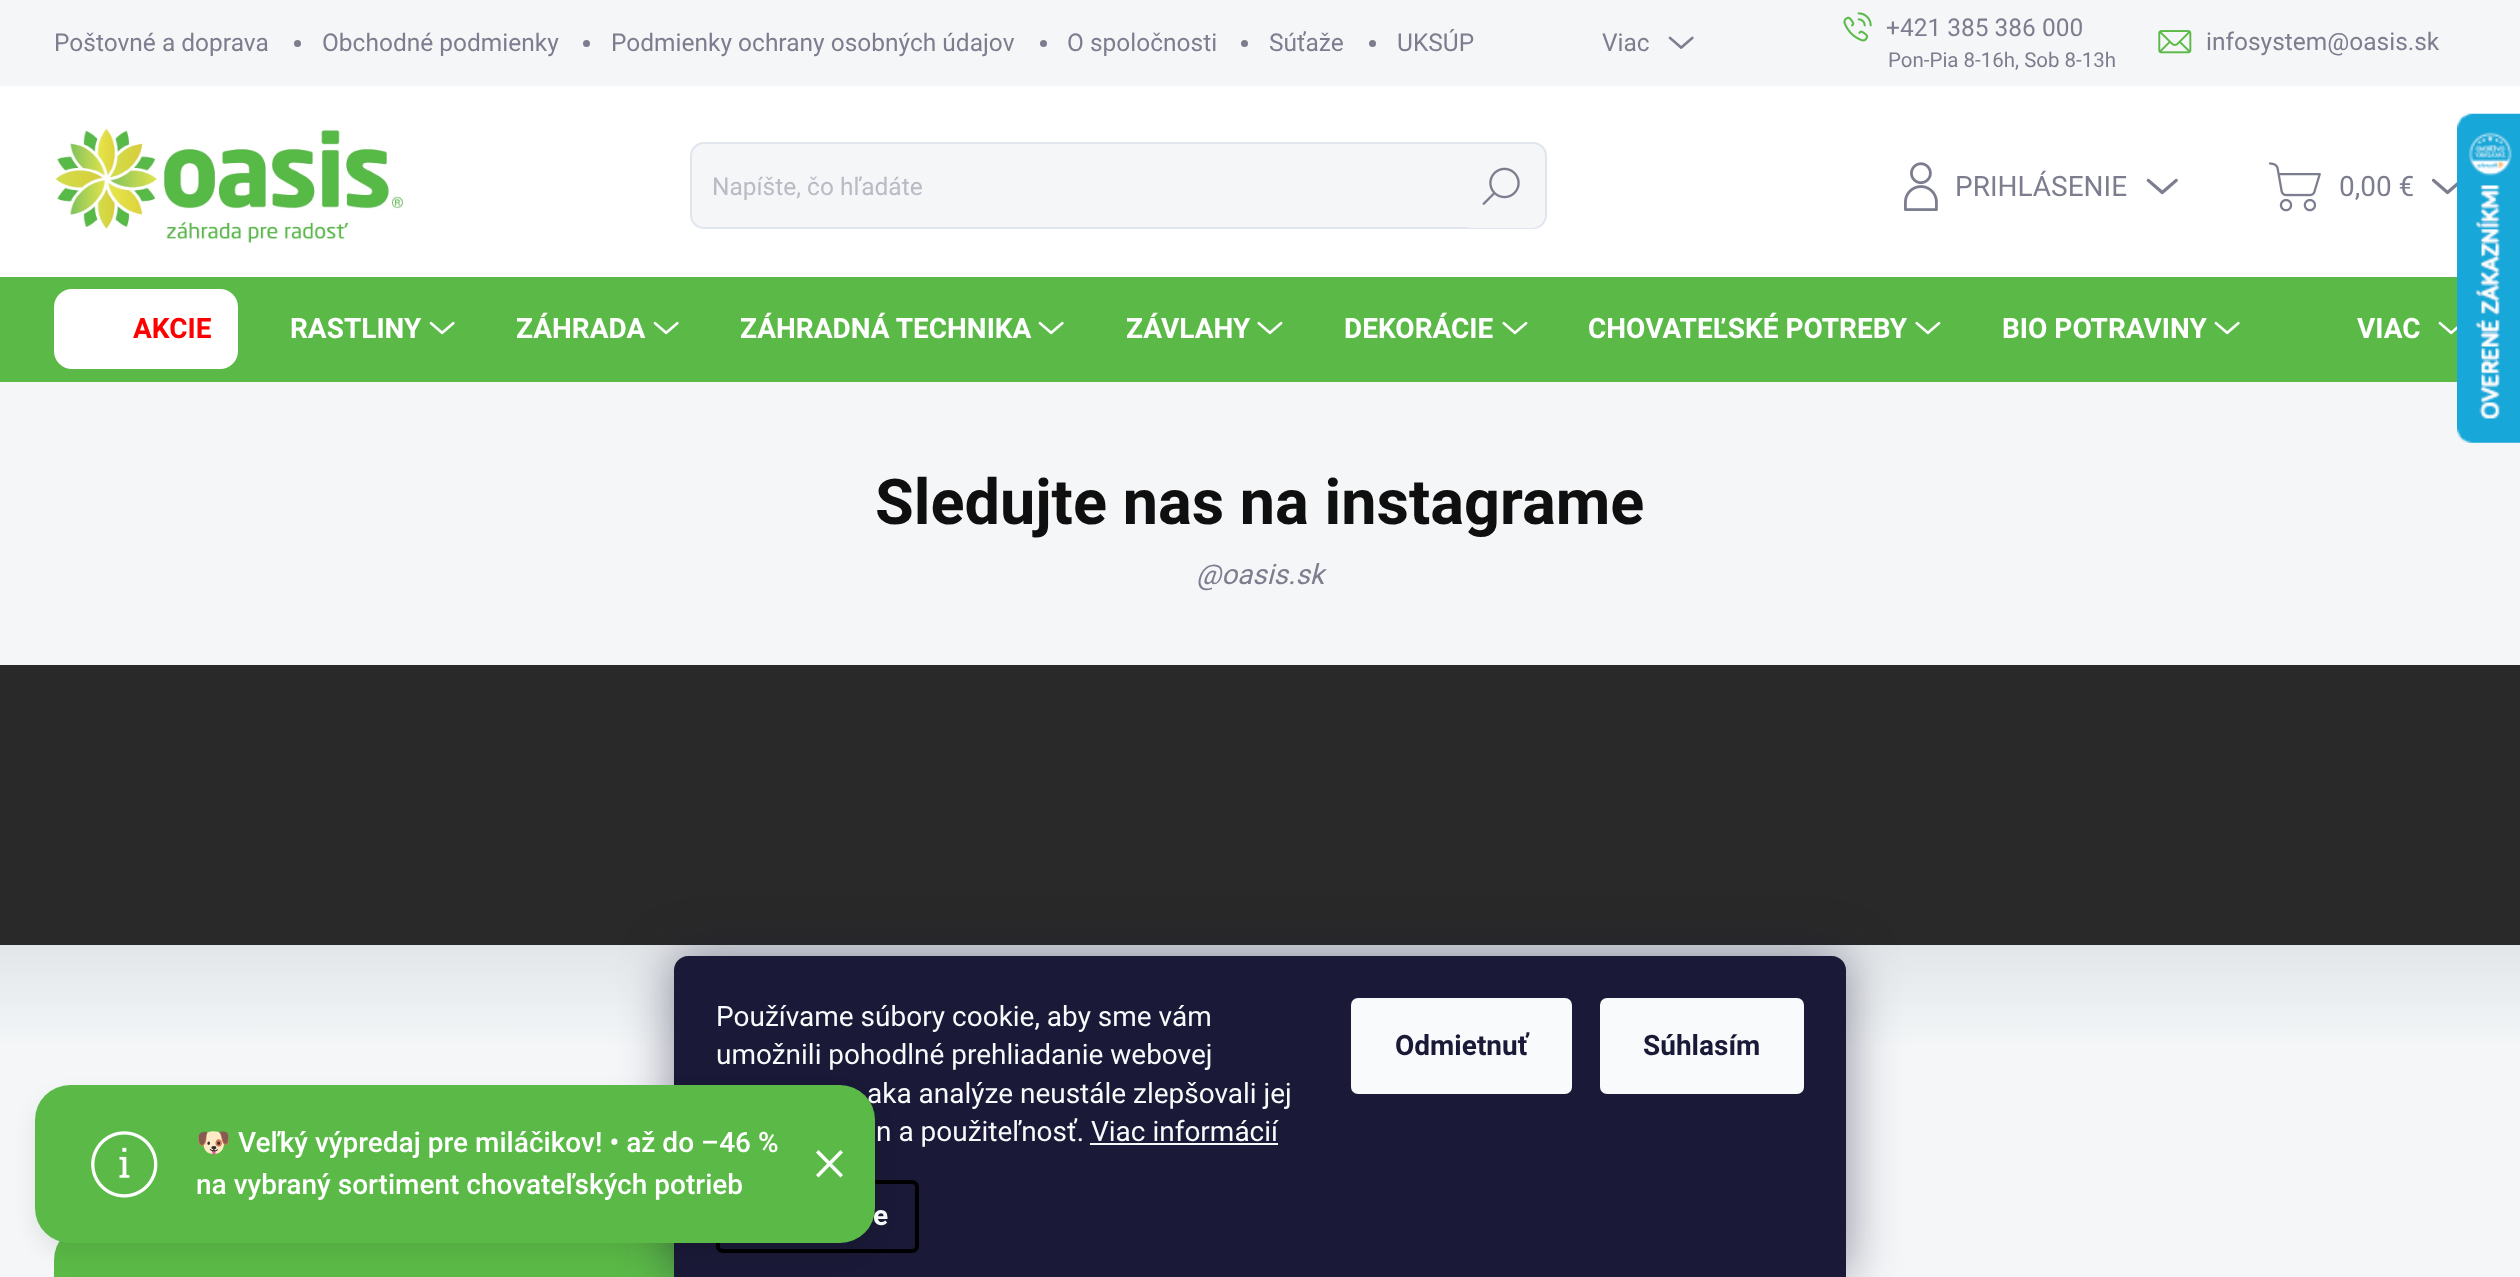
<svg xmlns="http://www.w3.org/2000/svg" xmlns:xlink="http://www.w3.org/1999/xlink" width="2520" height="1277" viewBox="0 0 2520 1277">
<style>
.cls-1{font:24.5px Roboto;fill:#7c7e8f}
.cls-2{font:20.5px Roboto;fill:#7c7e8f}
.cls-3{font:24.5px Roboto;fill:#b9bac4}
.cls-4{font:28px Roboto;fill:#7c7e8f}
.cls-5{font:bold 28px Roboto;fill:#fe0000}
.cls-6{font:bold 28px Roboto;fill:#ffffff}
.cls-7{font:bold 63px Roboto;fill:#0f0f0f}
.cls-8{font:italic 28px Roboto;fill:#7c7e8f}
.cls-9{font:28px Roboto;fill:#f8fafb}
.cls-10{font:bold 28px Roboto;fill:#f8fafb}
.cls-11{font:500 28px Roboto;fill:#ffffff}
.cls-12{font:28px Noto Color Emoji;fill:#ffffff}
.cls-13{font:bold 28px Roboto;fill:#1a1937}
</style>
<defs>
<linearGradient id="g1" gradientUnits="userSpaceOnUse" x1="1260" y1="1051" x2="1260" y2="946"><stop offset="0" stop-color="#f4f7f8"/><stop offset="1" stop-color="#e3e6e9"/></linearGradient>
</defs>
<rect width="100%" height="100%" fill="#f5f6f8"/>
<circle fill="#7c7e8f" cx="297.5" cy="43.5" r="3.5"/>
<circle fill="#7c7e8f" cx="586.5" cy="43.5" r="3.5"/>
<circle fill="#7c7e8f" cx="1043.5" cy="43.5" r="3.5"/>
<circle fill="#7c7e8f" cx="1244.5" cy="43.5" r="3.5"/>
<circle fill="#7c7e8f" cx="1372.5" cy="43.5" r="3.5"/>
<image xlink:href="image0.png" x="1668" y="36" width="26" height="13"/>
<image xlink:href="image1.png" x="1843" y="12" width="29" height="30"/>
<image xlink:href="image2.png" x="2158" y="30" width="34" height="24"/>
<rect fill="#ffffff" x="0" y="86" width="2520" height="191"/>
<image xlink:href="image3.png" x="55" y="128" width="349" height="115"/>
<rect fill="#f5f6f8" stroke="#e0e5ee" stroke-width="2" x="691" y="143" width="855" height="85" rx="13"/>
<rect fill="#f5f6f8" x="1458" y="144" width="87" height="84" rx="14"/>
<image xlink:href="image4.png" x="1482" y="167" width="38" height="38"/>
<image xlink:href="image5.png" x="1904" y="162" width="34" height="49"/>
<image xlink:href="image6.png" x="2146" y="178" width="32" height="17"/>
<image xlink:href="image7.png" x="2268" y="162" width="53" height="50"/>
<image xlink:href="image8.png" x="2431" y="178" width="26" height="17"/>
<rect fill="#5bba47" x="0" y="277" width="2457" height="105"/>
<rect fill="#ffffff" x="54" y="289" width="184" height="80" rx="18"/>
<image xlink:href="image9.png" x="429" y="321" width="26" height="14"/>
<image xlink:href="image9.png" x="653" y="321" width="26" height="14"/>
<image xlink:href="image9.png" x="1038" y="321" width="26" height="14"/>
<image xlink:href="image10.png" x="1257" y="321" width="26" height="14"/>
<image xlink:href="image10.png" x="1502" y="321" width="26" height="14"/>
<image xlink:href="image10.png" x="1915" y="321" width="26" height="14"/>
<image xlink:href="image9.png" x="2214" y="321" width="26" height="14"/>
<image xlink:href="image11.png" x="2438" y="321" width="19" height="14"/>
<rect fill="#292929" x="0" y="665" width="2520" height="280"/>
<rect fill="url(#g1)" x="0" y="945" width="2520" height="97"/>
<rect fill="#5bba47" x="54" y="1225" width="1689" height="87" rx="35"/>
<rect fill="#1b1939" fill-opacity="0.5" filter="blur(26px)" x="674" y="956" width="1172" height="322" rx="14"/>
<path fill="#1a1937" d="M688 956H1832C1839.5 956 1846 962.5 1846 970V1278H674V970C674 962.5 680.5 956 688 956Z"/>
<rect fill="none" stroke="#000000" stroke-width="4" x="718" y="1182" width="199" height="69" rx="5"/>
<rect fill="#000000" fill-opacity="0.08" filter="blur(10.5px)" x="35" y="1096" width="840" height="157" rx="35"/>
<image xlink:href="image13.png" x="2457" y="113" width="63" height="330"/>
<rect fill="#f8fafb" x="1090" y="1143" width="188" height="2"/>
<rect fill="#f8fafb" x="1351" y="998" width="221" height="96" rx="7"/>
<rect fill="#f8fafb" x="1600" y="998" width="204" height="96" rx="7"/>
<text class="cls-1" x="54" y="51">Poštovné a doprava</text>
<text class="cls-1" x="322" y="51">Obchodné podmienky</text>
<text class="cls-1" x="611" y="51">Podmienky ochrany osobných údajov</text>
<text class="cls-1" x="1067" y="51">O spoločnosti</text>
<text class="cls-1" x="1269" y="51">Súťaže</text>
<text class="cls-1" x="1397" y="51">UKSÚP</text>
<text class="cls-1" x="1602" y="51">Viac</text>
<text class="cls-1" x="1886" y="36">+421 385 386 000</text>
<text class="cls-2" x="1888" y="67">Pon-Pia 8-16h, Sob 8-13h</text>
<text class="cls-1" x="2206" y="50">infosystem@oasis.sk</text>
<text class="cls-3" x="712" y="195">Napíšte, čo hľadáte</text>
<text class="cls-4" x="1955" y="196">PRIHLÁSENIE</text>
<text class="cls-4" x="2339" y="196">0,00 €</text>
<text class="cls-5" x="133" y="338">AKCIE</text>
<text class="cls-6" x="290" y="338">RASTLINY</text>
<text class="cls-6" x="516" y="338">ZÁHRADA</text>
<text class="cls-6" x="740" y="338">ZÁHRADNÁ TECHNIKA</text>
<text class="cls-6" x="1126" y="338">ZÁVLAHY</text>
<text class="cls-6" x="1344" y="338">DEKORÁCIE</text>
<text class="cls-6" x="1588" y="338">CHOVATEĽSKÉ POTREBY</text>
<text class="cls-6" x="2002" y="338">BIO POTRAVINY</text>
<text class="cls-6" x="2357" y="338">VIAC</text>
<text class="cls-7" x="875" y="524">Sledujte nas na instagrame</text>
<text class="cls-8" x="1196" y="584">@oasis.sk</text>
<text class="cls-9"><tspan x="716" y="1026">Používame súbory cookie, aby sme vám</tspan><tspan x="716" y="1064">umožnili pohodlné prehliadanie webovej</tspan></text>
<text class="cls-9" x="867" y="1103">aka analýze neustále zlepšovali jej</text>
<text class="cls-9" x="876" y="1141">n a použiteľnosť. Viac informácií</text>
<text class="cls-10" x="873" y="1225">e</text>
<rect fill="#5bba47" x="35" y="1085" width="840" height="158" rx="35"/>
<path fill="#ffffff" d="M840.5 1150L843 1152.5L818.5 1177.5L816 1175Z"/>
<path fill="#ffffff" d="M818.5 1150L843 1175L840.5 1177.5L816 1152.5Z"/>
<image xlink:href="image12.png" x="91" y="1131" width="67" height="67"/>
<text class="cls-11" x="196" y="1194">na vybraný sortiment chovateľských potrieb</text>
<text class="cls-11" x="238" y="1152">Veľký výpredaj pre miláčikov! • až do –46 %</text>
<text class="cls-12" x="196" y="1152">🐶</text>
<text class="cls-13" x="1395" y="1055">Odmietnuť</text>
<text class="cls-13" x="1643" y="1055">Súhlasím</text>
</svg>
